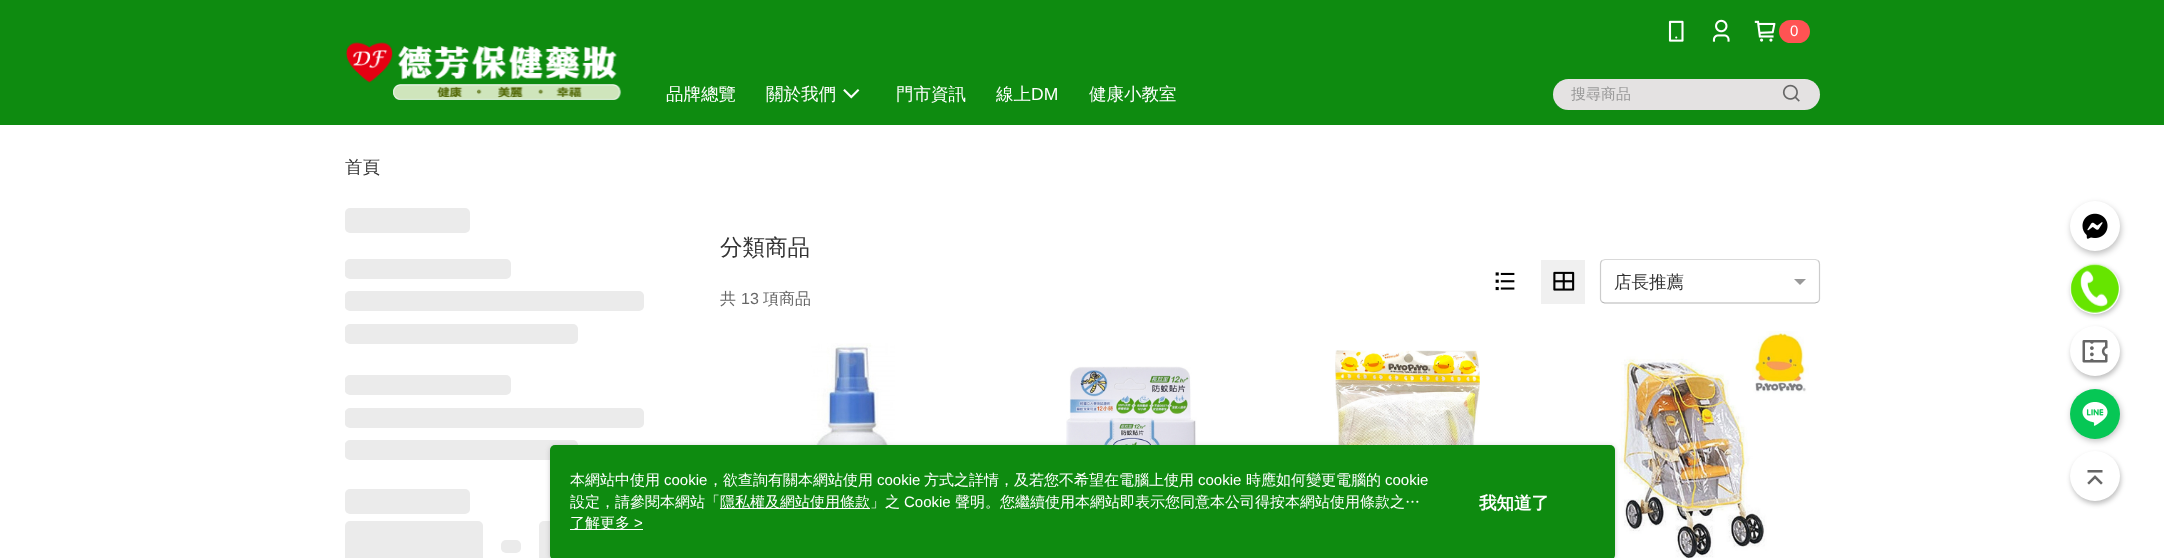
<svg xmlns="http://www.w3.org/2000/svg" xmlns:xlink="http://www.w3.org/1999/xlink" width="2164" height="558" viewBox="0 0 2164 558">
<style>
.cls-1{font:15px Liberation Sans;fill:#ffffff}
.cls-2{font:500 17.5px WenQuanYi Zen Hei;fill:#ffffff}
.cls-3{font:17.5px Liberation Sans;fill:#ffffff}
.cls-4{font:500 15px WenQuanYi Zen Hei;fill:#999999}
.cls-5{font:500 17.5px WenQuanYi Zen Hei;fill:#333333}
.cls-6{font:500 22.5px WenQuanYi Zen Hei;fill:#333333}
.cls-7{font:500 16px WenQuanYi Zen Hei;fill:#666666}
.cls-8{font:16px Liberation Sans;fill:#666666}
.cls-9{font:500 15px WenQuanYi Zen Hei;fill:#ffffff}
.cls-10{font:bold 17.5px WenQuanYi Zen Hei;fill:#ffffff}
</style>
<defs>
<clipPath id="clip1"><rect x="345" y="259" width="166" height="20" rx="5"/></clipPath>
<linearGradient id="g1" gradientUnits="userSpaceOnUse" x1="179" y1="269" x2="346" y2="269"><stop offset="0" stop-color="#ebebeb"/><stop offset="0.5" stop-color="#f5f5f5"/><stop offset="1" stop-color="#ebebeb"/></linearGradient>
<clipPath id="clip2"><rect x="345" y="291" width="299" height="20" rx="5"/></clipPath>
<linearGradient id="g2" gradientUnits="userSpaceOnUse" x1="47" y1="301" x2="346" y2="301"><stop offset="0" stop-color="#ebebeb"/><stop offset="0.5" stop-color="#f5f5f5"/><stop offset="1" stop-color="#ebebeb"/></linearGradient>
<clipPath id="clip3"><rect x="345" y="324" width="233" height="20" rx="5"/></clipPath>
<linearGradient id="g3" gradientUnits="userSpaceOnUse" x1="113" y1="334" x2="346" y2="334"><stop offset="0" stop-color="#ebebeb"/><stop offset="0.5" stop-color="#f5f5f5"/><stop offset="1" stop-color="#ebebeb"/></linearGradient>
<clipPath id="clip4"><rect x="345" y="375" width="166" height="20" rx="5"/></clipPath>
<linearGradient id="g4" gradientUnits="userSpaceOnUse" x1="179" y1="385" x2="346" y2="385"><stop offset="0" stop-color="#ebebeb"/><stop offset="0.5" stop-color="#f5f5f5"/><stop offset="1" stop-color="#ebebeb"/></linearGradient>
<clipPath id="clip5"><rect x="345" y="408" width="299" height="20" rx="5"/></clipPath>
<linearGradient id="g5" gradientUnits="userSpaceOnUse" x1="47" y1="418" x2="346" y2="418"><stop offset="0" stop-color="#ebebeb"/><stop offset="0.5" stop-color="#f5f5f5"/><stop offset="1" stop-color="#ebebeb"/></linearGradient>
<clipPath id="clip6"><rect x="345" y="440" width="233" height="20" rx="5"/></clipPath>
<linearGradient id="g6" gradientUnits="userSpaceOnUse" x1="113" y1="450" x2="346" y2="450"><stop offset="0" stop-color="#ebebeb"/><stop offset="0.5" stop-color="#f5f5f5"/><stop offset="1" stop-color="#ebebeb"/></linearGradient>
</defs>
<rect width="100%" height="100%" fill="#ffffff"/>
<rect fill="#0e8b10" x="0" y="0" width="2164" height="125"/>
<image xlink:href="image0.png" x="346" y="42" width="276" height="58"/>
<image xlink:href="image1.png" x="1668" y="20" width="16" height="22"/>
<image xlink:href="image2.png" x="1712" y="19" width="18" height="23"/>
<image xlink:href="image3.png" x="1754" y="20" width="22" height="22"/>
<rect fill="#ff5353" x="1779" y="20" width="31" height="23" rx="11.5"/>
<image xlink:href="image4.png" x="843" y="89" width="17" height="10"/>
<rect fill="#e4e2e2" x="1553" y="79" width="267" height="31" rx="15.5"/>
<image xlink:href="image5.png" x="1782" y="84" width="18" height="18"/>
<rect fill="#000000" fill-opacity="0.25" filter="blur(3px)" x="2071" y="204" width="50" height="50" rx="25"/>
<circle fill="#ffffff" cx="2095" cy="226" r="25"/>
<image xlink:href="image6.png" x="2082" y="213" width="26" height="26"/>
<rect fill="#000000" fill-opacity="0.25" filter="blur(2.5px)" x="2071" y="266" width="50" height="50" rx="25"/>
<circle fill="#ffffff" cx="2095" cy="289" r="25"/>
<image xlink:href="image7.png" x="2070" y="263" width="49" height="50"/>
<rect fill="#000000" fill-opacity="0.25" filter="blur(2.5px)" x="2071" y="329" width="50" height="50" rx="25"/>
<circle fill="#ffffff" cx="2095" cy="351" r="25"/>
<image xlink:href="image8.png" x="2082" y="340" width="26" height="23"/>
<rect fill="#000000" fill-opacity="0.25" filter="blur(3px)" x="2071" y="391" width="50" height="50" rx="25"/>
<circle fill="#06c755" cx="2095" cy="414" r="25"/>
<image xlink:href="image9.png" x="2082" y="402" width="26" height="24"/>
<rect fill="#000000" fill-opacity="0.25" filter="blur(2.5px)" x="2071" y="454" width="50" height="50" rx="25"/>
<circle fill="#ffffff" cx="2095" cy="476" r="25"/>
<image xlink:href="image10.png" x="2087" y="470" width="16" height="15"/>
<rect fill="#ebebeb" x="345" y="208" width="125" height="25" rx="5"/>
<rect fill="#ebebeb" x="345" y="259" width="166" height="20" rx="5"/>
<g clip-path="url(#clip1)">
<rect fill="url(#g1)" x="345" y="259" width="1" height="20"/>
</g>
<rect fill="#ebebeb" x="345" y="291" width="299" height="20" rx="5"/>
<g clip-path="url(#clip2)">
<rect fill="url(#g2)" x="345" y="291" width="1" height="20"/>
</g>
<rect fill="#ebebeb" x="345" y="324" width="233" height="20" rx="5"/>
<g clip-path="url(#clip3)">
<rect fill="url(#g3)" x="345" y="324" width="1" height="20"/>
</g>
<rect fill="#ebebeb" x="345" y="375" width="166" height="20" rx="5"/>
<g clip-path="url(#clip4)">
<rect fill="url(#g4)" x="345" y="375" width="1" height="20"/>
</g>
<rect fill="#ebebeb" x="345" y="408" width="299" height="20" rx="5"/>
<g clip-path="url(#clip5)">
<rect fill="url(#g5)" x="345" y="408" width="1" height="20"/>
</g>
<rect fill="#ebebeb" x="345" y="440" width="233" height="20" rx="5"/>
<g clip-path="url(#clip6)">
<rect fill="url(#g6)" x="345" y="440" width="1" height="20"/>
</g>
<rect fill="#ebebeb" x="345" y="489" width="125" height="25" rx="5"/>
<rect fill="#ebebeb" x="345" y="521" width="138" height="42" rx="5"/>
<rect fill="#ebebeb" x="501" y="540" width="20" height="13" rx="5"/>
<rect fill="#ebebeb" x="539" y="521" width="137" height="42" rx="5"/>
<image xlink:href="image11.png" x="1495" y="272" width="20" height="19"/>
<rect fill="#f0f0f0" x="1541" y="260" width="44" height="44"/>
<image xlink:href="image12.png" x="1553" y="271" width="22" height="20"/>
<path fill="none" stroke="#d9d9d9" stroke-width="1.2" d="M1602 260.5L1605 259.5H1815.5L1818 260.5"/>
<path fill="none" stroke="#cccccc" stroke-width="1.2" d="M1818 260.5C1819 261.5 1819.5 262.5 1819.5 264V299C1819.5 300 1819 301 1818 302"/>
<path fill="none" stroke="#b3b3b3" stroke-width="1.2" d="M1818 302L1815 303H1604.5L1602 302"/>
<path fill="none" stroke="#cccccc" stroke-width="1.2" d="M1602 302C1601 301 1600.5 300 1600.5 299V264C1600.5 262.5 1601 261.5 1602 260.5"/>
<path fill="#999999" d="M1794 279H1806L1800 285Z"/>
<image xlink:href="image13.png" x="811" y="343" width="84" height="102"/>
<image xlink:href="image14.png" x="1066" y="366" width="131" height="79"/>
<image xlink:href="image15.png" x="1335" y="350" width="145" height="95"/>
<image xlink:href="image16.png" x="1619" y="331" width="190" height="227"/>
<rect fill="#979797" fill-opacity="0.5" filter="blur(2.5px)" x="550" y="446" width="1065" height="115" rx="5"/>
<rect fill="#0e8b10" x="550" y="445" width="1065" height="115" rx="5"/>
<rect fill="#ffffff" x="720" y="508" width="150" height="1"/>
<rect fill="#ffffff" x="570" y="529" width="73" height="1"/>
<text class="cls-1" x="1790" y="36">0</text>
<text class="cls-2" x="666" y="100">品牌總覽</text>
<text class="cls-2" x="766" y="100">關於我們</text>
<text class="cls-2" x="896" y="100">門市資訊</text>
<text class="cls-2" x="996" y="100">線上</text>
<text class="cls-3" x="1031" y="100">DM</text>
<text class="cls-2" x="1089" y="100">健康小教室</text>
<text class="cls-4" x="1571" y="99">搜尋商品</text>
<text class="cls-5" x="345" y="173">首頁</text>
<text class="cls-6" x="720" y="255">分類商品</text>
<text class="cls-5" x="1614" y="288">店長推薦</text>
<text class="cls-7" x="720" y="304">共</text>
<text class="cls-8" x="741" y="304">13</text>
<text class="cls-7" x="763" y="304">項商品</text>
<text class="cls-9" x="570" y="485">本網站中使用</text>
<text class="cls-1" x="664" y="485">cookie</text>
<text class="cls-9" x="708" y="485">，欲查詢有關本網站使用</text>
<text class="cls-1" x="877" y="485">cookie</text>
<text class="cls-9" x="924" y="485">方式之詳情，及若您不希望在電腦上使用</text>
<text class="cls-1" x="1198" y="485">cookie</text>
<text class="cls-9" x="1246" y="485">時應如何變更電腦的</text>
<text class="cls-1" x="1385" y="485">cookie</text>
<text class="cls-9" x="570" y="507">設定，請參閱本網站「</text>
<text class="cls-9" x="720" y="507">隱私權及網站使用條款」之</text>
<text class="cls-1" x="904" y="507">Cookie</text>
<text class="cls-9" x="955" y="507">聲明。您繼續使用本網站即表示您同意本公司得按本網站使用條款之…</text>
<text class="cls-9" x="570" y="528">了解更多</text>
<text class="cls-1" x="634" y="528">&gt;</text>
<text class="cls-10" x="1479" y="509">我知道了</text>
</svg>
